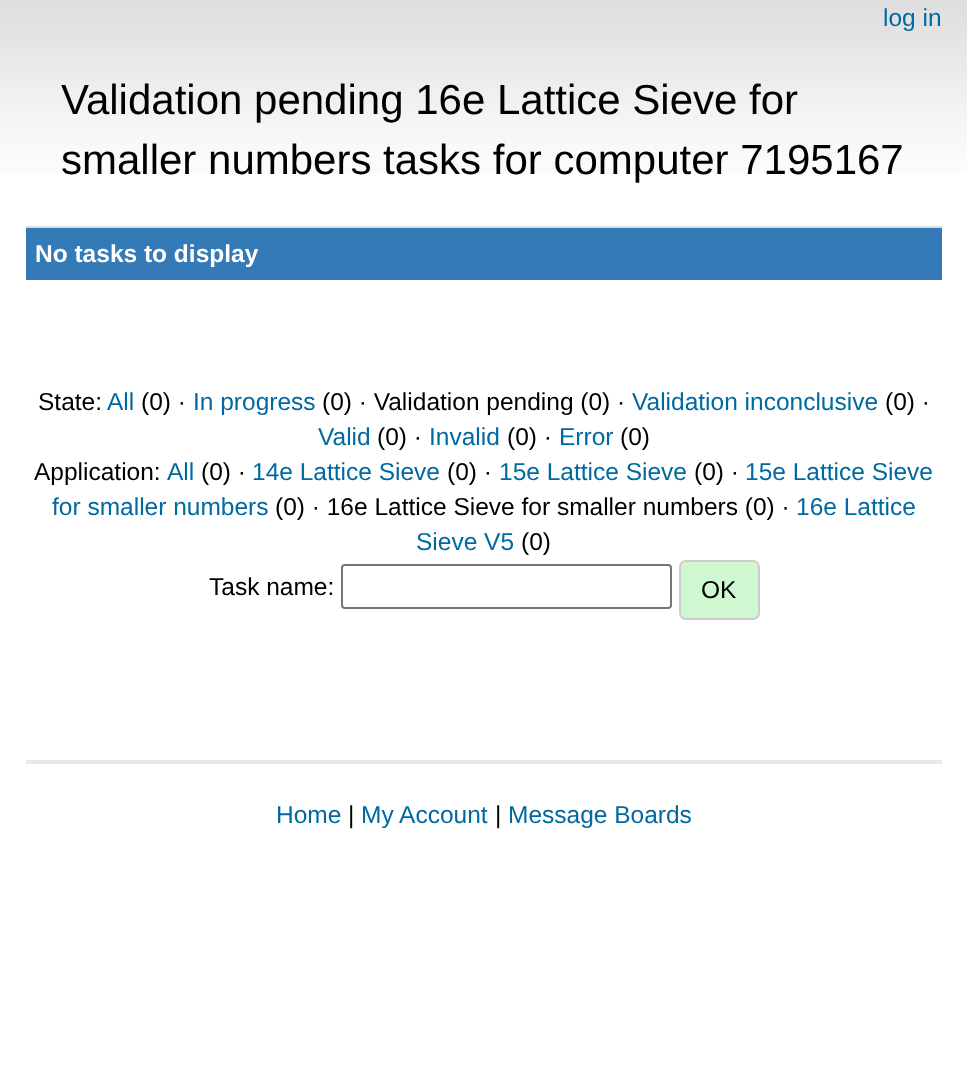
<svg xmlns="http://www.w3.org/2000/svg" xmlns:xlink="http://www.w3.org/1999/xlink" width="967" height="1087" viewBox="0 0 967 1087">
<style>
.cls-1{font:24.5px Liberation Sans;fill:#0069a1}
.cls-2{font:42px Liberation Sans;fill:#000000}
.cls-3{font:bold 24.5px Liberation Sans;fill:#ffffff}
.cls-4{font:24.5px Liberation Sans;fill:#000000}
</style>
<rect width="100%" height="100%" fill="#ffffff"/>
<image xlink:href="image0.png" x="0" y="0" width="967" height="174"/>
<rect fill="#337ab7" x="26" y="228" width="916" height="52"/>
<rect fill="#dddddd" x="26" y="226" width="917" height="2"/>
<rect fill="none" stroke="#767676" stroke-width="2" x="342" y="565" width="329" height="43" rx="3"/>
<rect fill="#d0f8d0" stroke="#cccccc" stroke-width="2" x="680" y="561" width="79" height="58" rx="6"/>
<rect fill="#e8e8e8" x="26" y="760" width="916" height="4"/>
<text class="cls-1" x="883" y="26">log in</text>
<text class="cls-2"><tspan x="61" y="114">Validation pending 16e Lattice Sieve for</tspan><tspan x="61" y="174">smaller numbers tasks for computer 7195167</tspan></text>
<text class="cls-3" x="35" y="262">No tasks to display</text>
<text class="cls-4" x="38" y="410">State:</text>
<text class="cls-1" x="107" y="410">All</text>
<text class="cls-4" x="141" y="410">(0) ·</text>
<text class="cls-1" x="193" y="410">In progress</text>
<text class="cls-4" x="322" y="410">(0) · Validation pending (0) ·</text>
<text class="cls-1" x="632" y="410">Validation inconclusive</text>
<text class="cls-4" x="885" y="410">(0) ·</text>
<text class="cls-1" x="318" y="445">Valid</text>
<text class="cls-4" x="377" y="445">(0) ·</text>
<text class="cls-1" x="429" y="445">Invalid</text>
<text class="cls-4" x="507" y="445">(0) ·</text>
<text class="cls-1" x="559" y="445">Error</text>
<text class="cls-4" x="620" y="445">(0)</text>
<text class="cls-4" x="34" y="480">Application:</text>
<text class="cls-1" x="167" y="480">All</text>
<text class="cls-4" x="201" y="480">(0) ·</text>
<text class="cls-1" x="252" y="480">14e Lattice Sieve</text>
<text class="cls-4" x="447" y="480">(0) ·</text>
<text class="cls-1" x="499" y="480">15e Lattice Sieve</text>
<text class="cls-4" x="694" y="480">(0) ·</text>
<text class="cls-1" x="745" y="480">15e Lattice Sieve</text>
<text class="cls-1" x="52" y="515">for smaller numbers</text>
<text class="cls-4" x="275" y="515">(0) · 16e Lattice Sieve for smaller numbers (0) ·</text>
<text class="cls-1" x="796" y="515">16e Lattice</text>
<text class="cls-1" x="416" y="550">Sieve V5</text>
<text class="cls-4" x="521" y="550">(0)</text>
<text class="cls-4" x="209" y="595">Task name:</text>
<text class="cls-4" x="701" y="598">OK</text>
<text class="cls-1" x="276" y="823">Home</text>
<text class="cls-4" x="348" y="823">|</text>
<text class="cls-1" x="361" y="823">My Account</text>
<text class="cls-4" x="495" y="823">|</text>
<text class="cls-1" x="508" y="823">Message Boards</text>
</svg>
